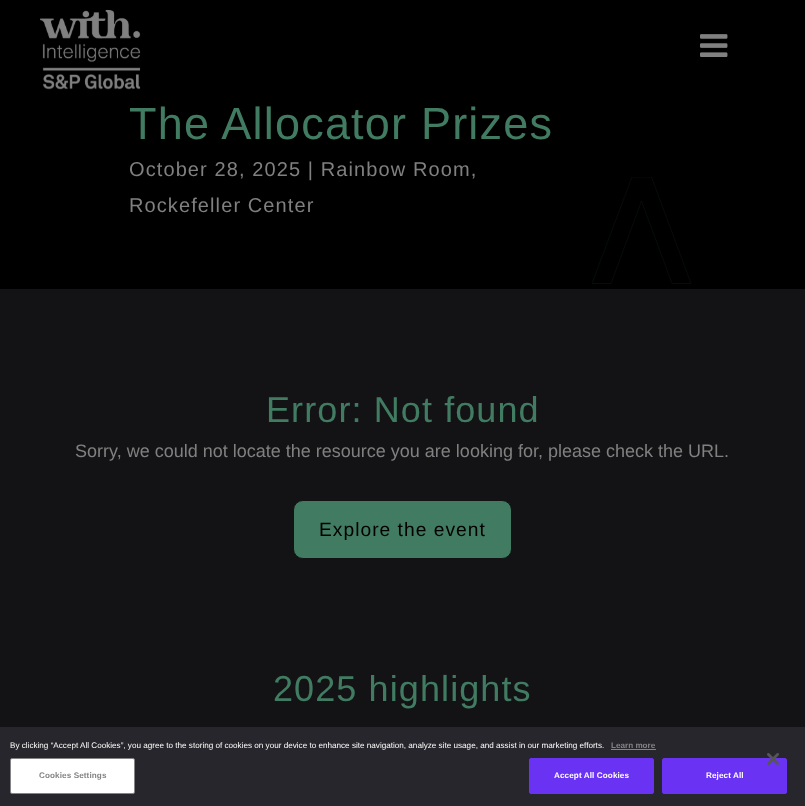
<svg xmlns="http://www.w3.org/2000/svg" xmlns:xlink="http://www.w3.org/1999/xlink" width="805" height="806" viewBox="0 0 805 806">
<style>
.cls-1{font:45px Liberation Sans;letter-spacing:1.2px;fill:#417c62}
.cls-2{font:20px Liberation Sans;letter-spacing:1.1px;fill:#808080}
.cls-3{font:36px Liberation Sans;letter-spacing:1.1px;fill:#417c62}
.cls-4{font:18px Liberation Sans;fill:#808080}
.cls-5{font:19.25px Liberation Sans;letter-spacing:1px;fill:#000000}
.cls-6{font:8.13px Liberation Sans;fill:#ffffff}
.cls-7{font:bold 8.13px Liberation Sans;fill:#848486}
.cls-8{font:bold 8.13px Liberation Sans;letter-spacing:0.1px;fill:#848486}
.cls-9{font:bold 8.13px Liberation Sans;letter-spacing:0.1px;fill:#ffffff}
</style>
<defs>
<clipPath id="clip1"><rect x="592" y="177" width="99" height="107"/></clipPath>
</defs>
<rect width="100%" height="100%" fill="#000000"/>
<image xlink:href="image0.png" x="40" y="10" width="101" height="80"/>
<image xlink:href="image1.png" x="700" y="34" width="28" height="23"/>
<g clip-path="url(#clip1)">
<path fill="none" stroke="#417c62" stroke-width="0.1" d="M632 177L592 283.5H611L641.5 201L672 283.5H691L651.5 177Z"/>
</g>
<rect fill="#131316" x="0" y="289" width="805" height="438"/>
<rect fill="#417c62" stroke="#131316" x="293.5" y="500.5" width="218" height="58" rx="9.5"/>
<rect fill="#26262c" x="0" y="727" width="805" height="79"/>
<rect fill="#848486" x="611" y="749" width="45" height="1"/>
<rect fill="#ffffff" stroke="#848486" x="10.5" y="758.5" width="124" height="35" rx="1.5"/>
<rect fill="#6a32f3" stroke="#6a32f3" x="529.5" y="758.5" width="124" height="35" rx="1.5"/>
<rect fill="#6a32f3" stroke="#6a32f3" x="662.5" y="758.5" width="124" height="35" rx="1.5"/>
<image xlink:href="image2.png" x="767" y="753" width="12" height="12"/>
<text class="cls-1" x="129" y="139">The Allocator Prizes</text>
<text class="cls-2"><tspan x="129" y="176">October 28, 2025 | Rainbow Room,</tspan><tspan x="129" y="212">Rockefeller Center</tspan></text>
<text class="cls-3" x="266" y="422">Error: Not found</text>
<text class="cls-4" x="75" y="457">Sorry, we could not locate the resource you are looking for, please check the URL.</text>
<text class="cls-5" x="319" y="536">Explore the event</text>
<text class="cls-3" x="273" y="701">2025 highlights</text>
<text class="cls-6" x="10" y="748">By clicking “Accept All Cookies”, you agree to the storing of cookies on your device to enhance site navigation, analyze site usage, and assist in our marketing efforts.</text>
<text class="cls-7" x="611" y="748">Learn more</text>
<text class="cls-8" x="39" y="778">Cookies Settings</text>
<text class="cls-9" x="554" y="778">Accept All Cookies</text>
<text class="cls-9" x="706" y="778">Reject All</text>
</svg>
